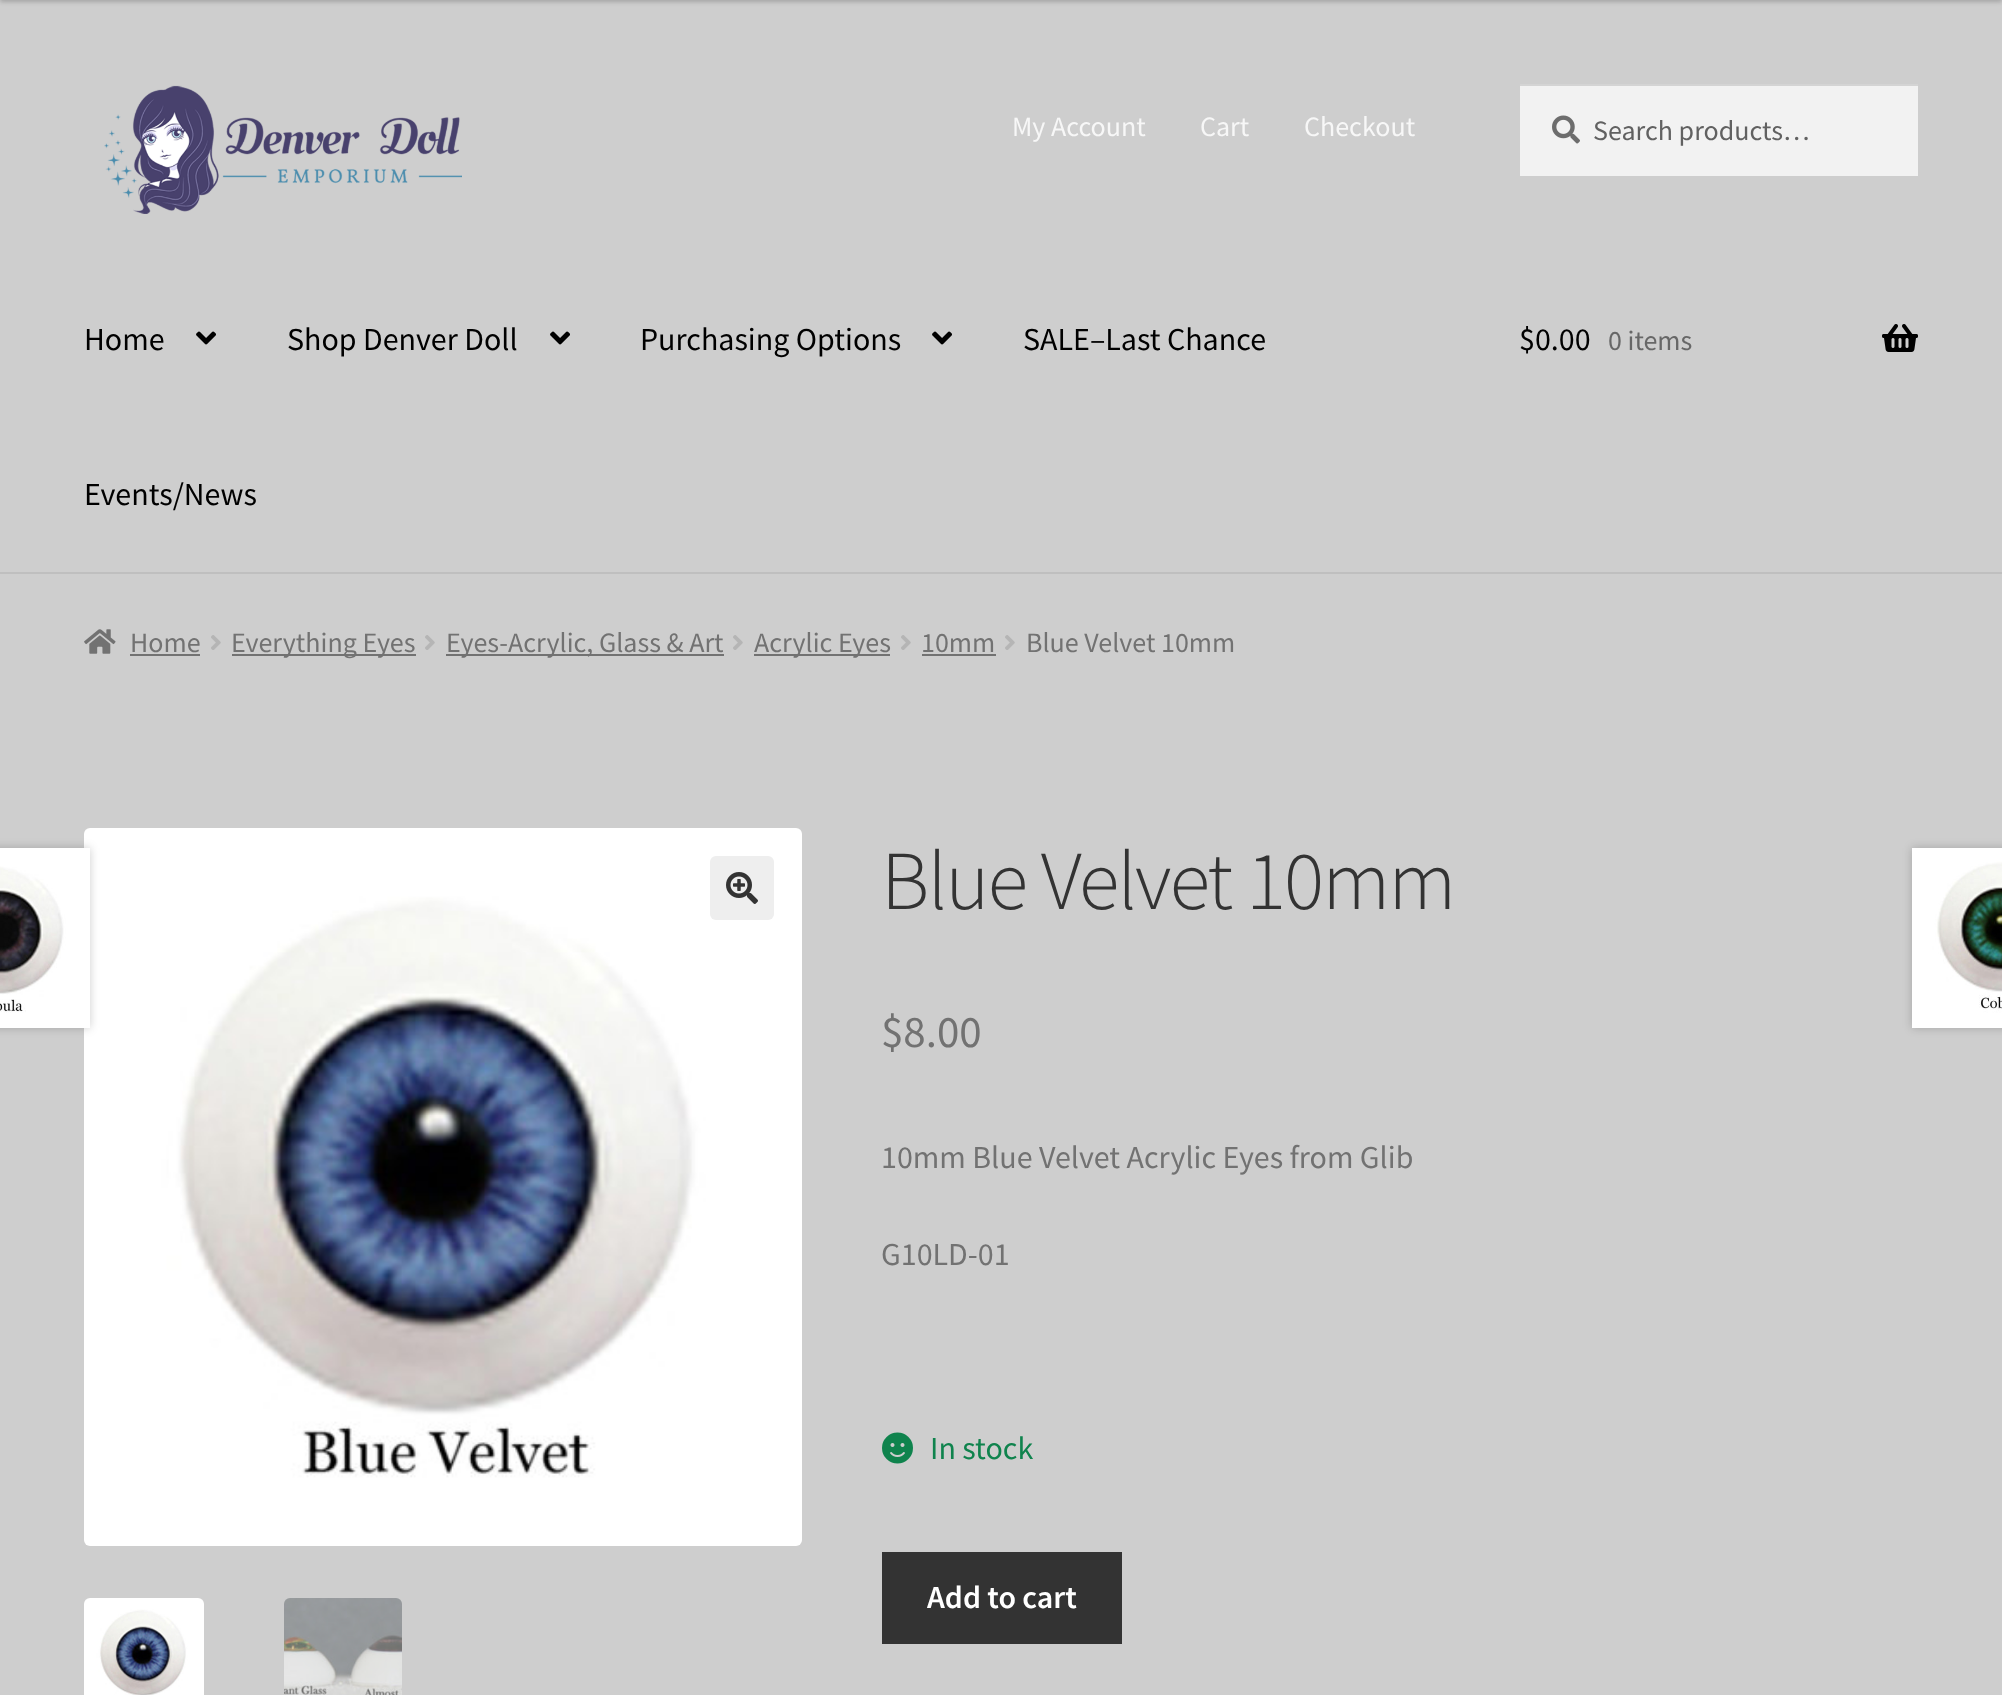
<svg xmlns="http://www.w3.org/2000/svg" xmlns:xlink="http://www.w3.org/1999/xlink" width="2002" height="1695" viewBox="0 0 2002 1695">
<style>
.cls-1{font:28px Source Sans Pro;fill:#f7f7f7}
.cls-2{font:28px Source Sans Pro;fill:#616161}
.cls-3{font:32px Source Sans Pro;fill:#000000}
.cls-4{font:28px Source Sans Pro;fill:#676767}
.cls-5{font:28px Source Sans Pro;fill:#727272}
.cls-6{font:300 83.75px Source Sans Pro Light;letter-spacing:-2px;fill:#333333}
.cls-7{font:45px Source Sans Pro;fill:#727272}
.cls-8{font:32px Source Sans Pro;fill:#727272}
.cls-9{font:32px Source Sans Pro;fill:#0f834d}
.cls-10{font:600 32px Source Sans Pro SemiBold;fill:#ffffff}
</style>
<rect width="100%" height="100%" fill="#cecece"/>
<rect fill="#000000" fill-opacity="0.2" filter="blur(2px)" x="0" y="-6" width="2002" height="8"/>
<rect fill="#bfbfbf" x="0" y="572" width="2002" height="2"/>
<image xlink:href="image0.png" x="104" y="85" width="358" height="129"/>
<rect fill="#f2f2f2" x="1520" y="86" width="398" height="90"/>
<image xlink:href="image1.png" x="1552" y="115" width="28" height="29"/>
<rect fill="#d4d4d4" x="1520" y="84" width="398" height="2"/>
<image xlink:href="image2.png" x="196" y="331" width="20" height="14"/>
<image xlink:href="image2.png" x="550" y="331" width="20" height="14"/>
<image xlink:href="image2.png" x="932" y="331" width="20" height="14"/>
<image xlink:href="image3.png" x="1882" y="324" width="36" height="28"/>
<image xlink:href="image4.png" x="84" y="629" width="32" height="25"/>
<rect fill="#727272" x="130" y="654" width="70" height="2"/>
<image xlink:href="image5.png" x="211" y="635" width="10" height="15"/>
<rect fill="#727272" x="232" y="654" width="184" height="2"/>
<image xlink:href="image5.png" x="425" y="635" width="10" height="15"/>
<rect fill="#727272" x="446" y="654" width="278" height="2"/>
<image xlink:href="image5.png" x="733" y="635" width="10" height="15"/>
<rect fill="#727272" x="754" y="654" width="136" height="2"/>
<image xlink:href="image5.png" x="901" y="635" width="10" height="15"/>
<rect fill="#727272" x="922" y="654" width="74" height="2"/>
<image xlink:href="image5.png" x="1005" y="635" width="10" height="15"/>
<image xlink:href="image6.png" x="84" y="828" width="718" height="718"/>
<rect fill="#eeeeee" x="710" y="856" width="64" height="64" rx="6"/>
<image xlink:href="image7.png" x="726" y="872" width="32" height="32"/>
<image xlink:href="image8.png" x="84" y="1598" width="120" height="97"/>
<image xlink:href="image9.png" x="284" y="1598" width="118" height="97"/>
<rect fill="#000000" fill-opacity="0.2" filter="blur(5px)" x="-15" y="848" width="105" height="180"/>
<image xlink:href="image10.png" x="0" y="848" width="90" height="180"/>
<rect fill="#000000" fill-opacity="0.2" filter="blur(5px)" x="1912" y="848" width="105" height="180"/>
<image xlink:href="image11.png" x="1912" y="848" width="90" height="180"/>
<image xlink:href="image12.png" x="882" y="1432" width="31" height="32"/>
<rect fill="#333333" x="882" y="1552" width="240" height="92"/>
<text class="cls-1" x="1012" y="136">My Account</text>
<text class="cls-1" x="1200" y="136">Cart</text>
<text class="cls-1" x="1304" y="136">Checkout</text>
<text class="cls-2" x="1593" y="140">Search products…</text>
<text class="cls-3" x="84" y="350">Home</text>
<text class="cls-3" x="287" y="350">Shop Denver Doll</text>
<text class="cls-3" x="640" y="350">Purchasing Options</text>
<text class="cls-3" x="1023" y="350">SALE–Last Chance</text>
<text class="cls-3" x="84" y="505">Events/News</text>
<text class="cls-3" x="1519" y="350">$0.00</text>
<text class="cls-4" x="1608" y="350">0 items</text>
<text class="cls-5" x="130" y="652">Home</text>
<text class="cls-5" x="231" y="652">Everything Eyes</text>
<text class="cls-5" x="446" y="652">Eyes-Acrylic, Glass &amp; Art</text>
<text class="cls-5" x="754" y="652">Acrylic Eyes</text>
<text class="cls-5" x="921" y="652">10mm</text>
<text class="cls-5" x="1026" y="652">Blue Velvet 10mm</text>
<text class="cls-6" x="881" y="909">Blue Velvet 10mm</text>
<text class="cls-7" x="881" y="1047">$8.00</text>
<text class="cls-8" x="881" y="1168">10mm Blue Velvet Acrylic Eyes from Glib</text>
<text class="cls-8" x="881" y="1265">G10LD-01</text>
<text class="cls-9" x="930" y="1459">In stock</text>
<text class="cls-10" x="927" y="1608">Add to cart</text>
</svg>
